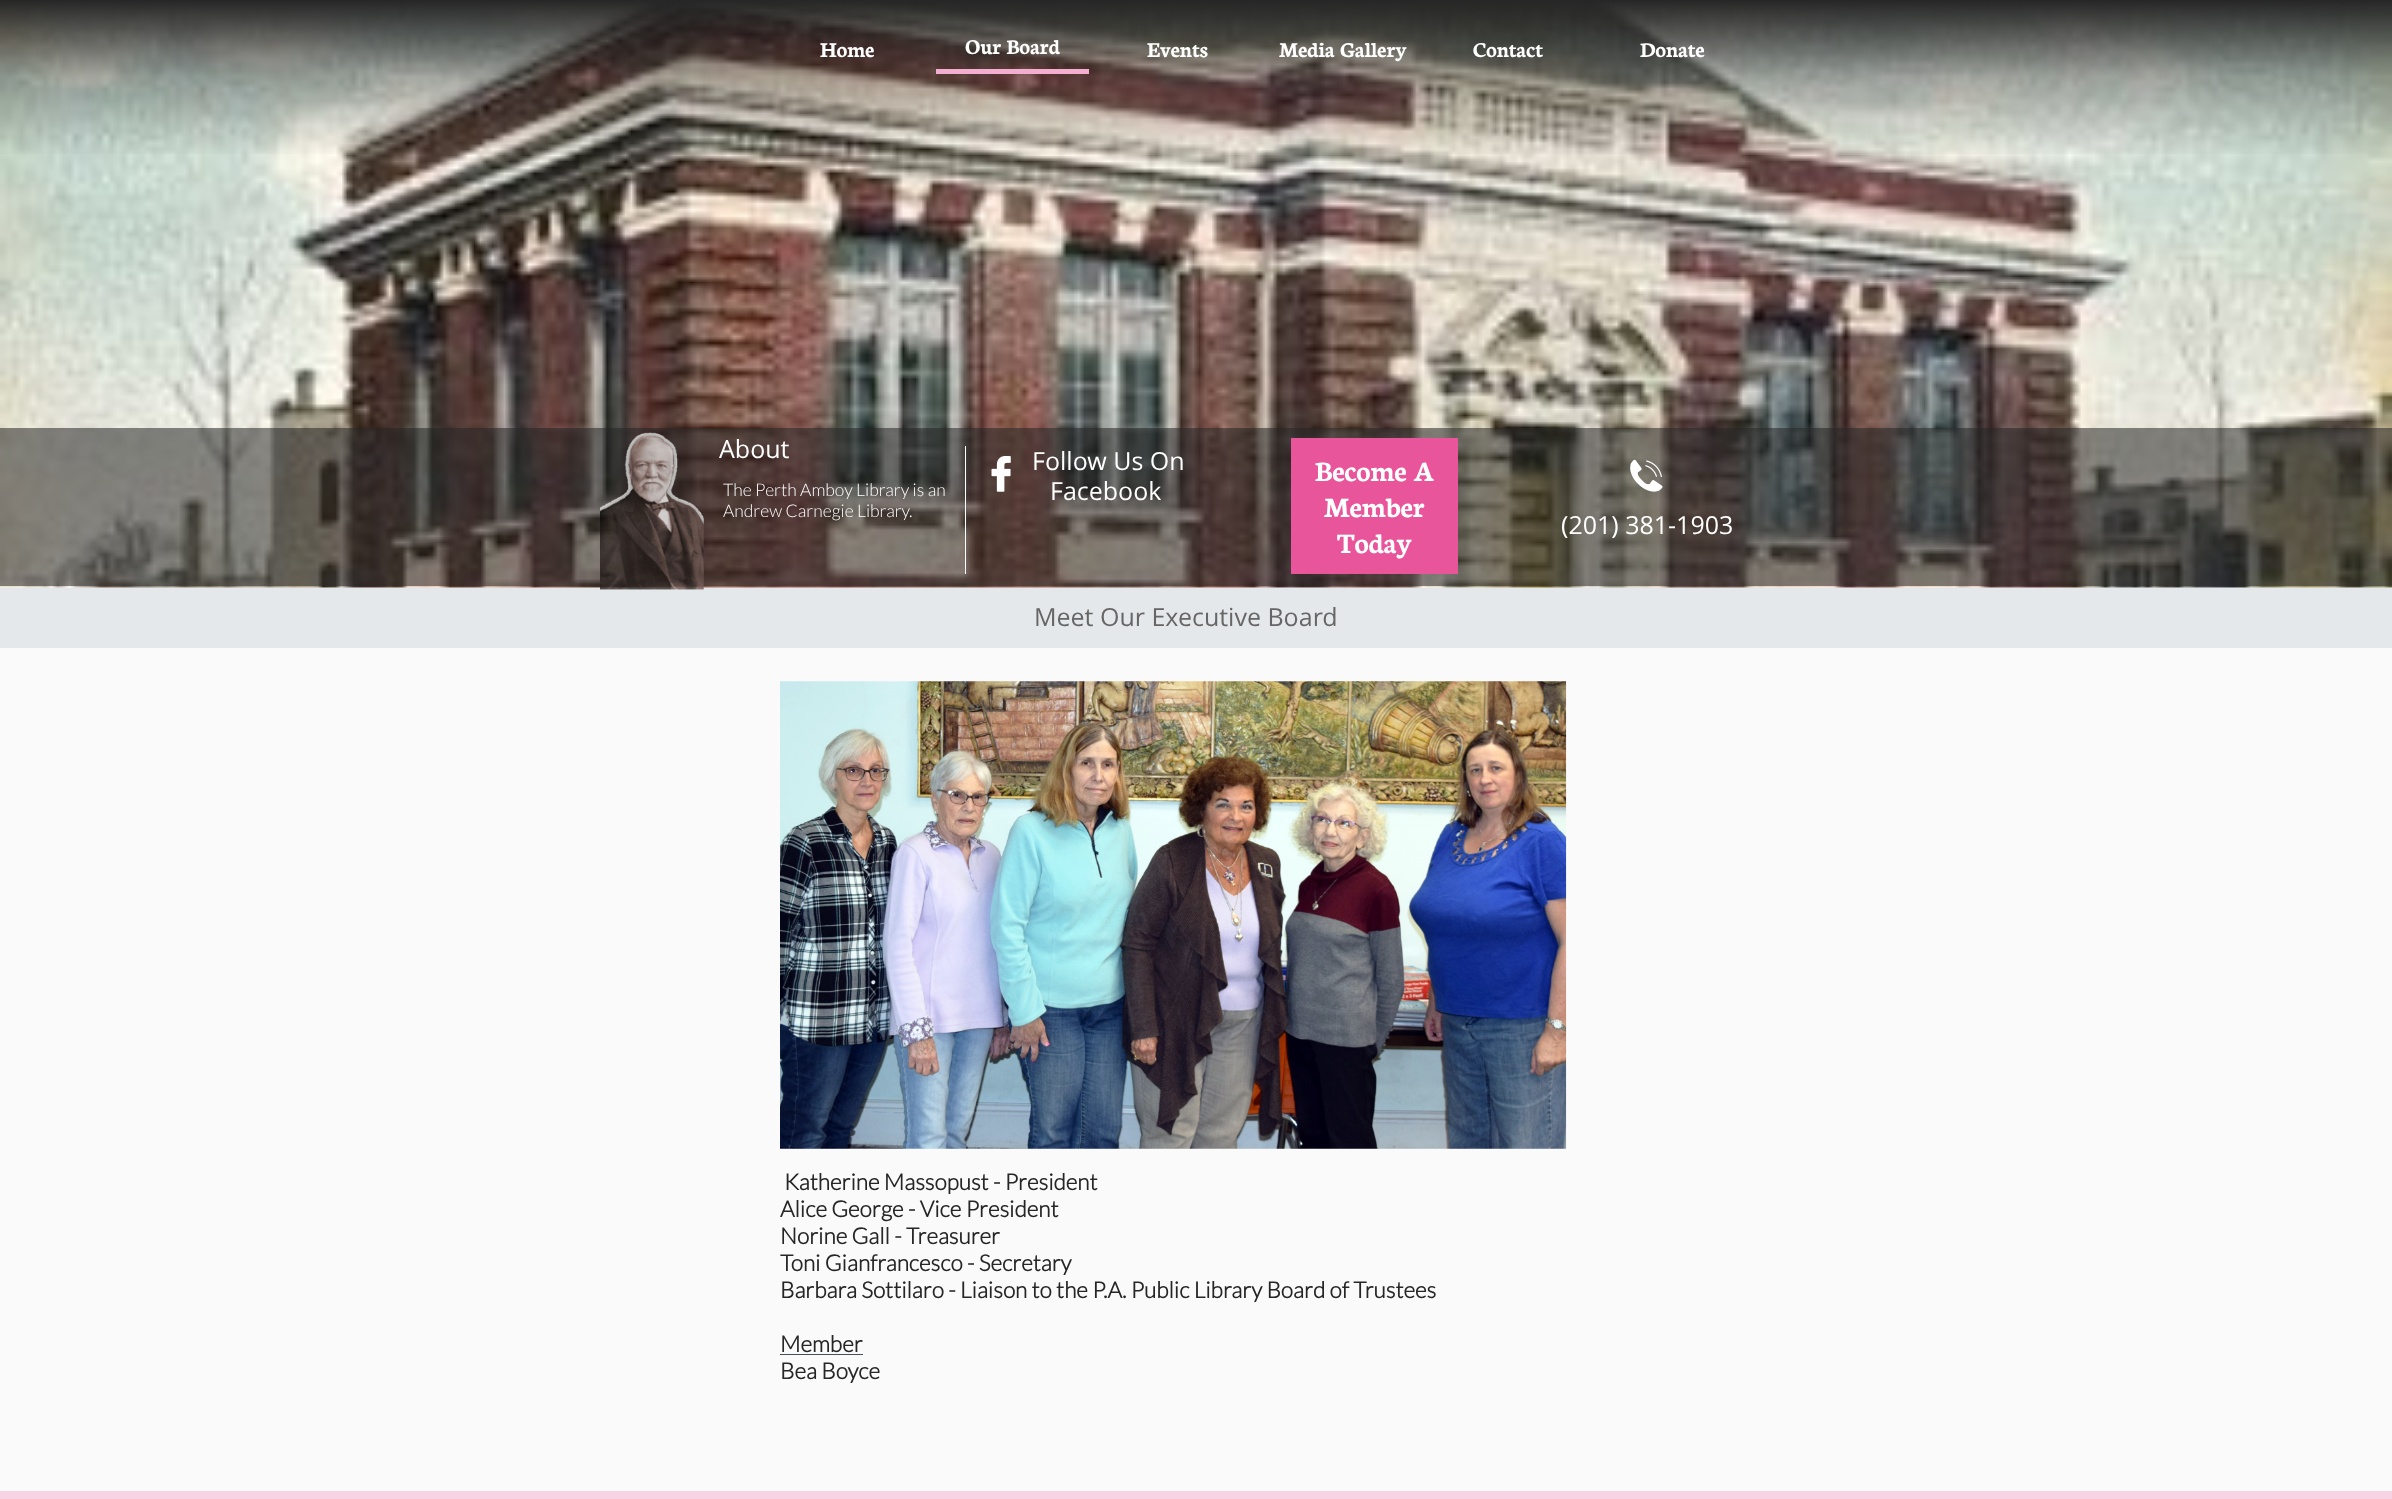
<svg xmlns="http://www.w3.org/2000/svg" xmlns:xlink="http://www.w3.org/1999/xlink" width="2392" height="1499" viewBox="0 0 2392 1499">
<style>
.cls-1{font:bold 22.5px Neuton;fill:#ffffff}
.cls-2{font:25px Open Sans;fill:#ffffff}
.cls-3{font:300 17.5px Lato;fill:#ffffff}
.cls-4{font:bold 30px Neuton;fill:#ffffff}
.cls-5{font:25px Open Sans;fill:#666666}
.cls-6{font:bold 22.5px Lato;fill:#262626}
</style>
<defs>
<linearGradient id="g1" gradientUnits="userSpaceOnUse" x1="1196" y1="0" x2="1196" y2="588"><stop offset="0" stop-color="#262626"/><stop offset="0.13" stop-color="#131313" stop-opacity="0.34"/><stop offset="0.27" stop-color="#131313" stop-opacity="0"/><stop offset="1" stop-color="#000000" stop-opacity="0"/></linearGradient>
</defs>
<rect width="100%" height="100%" fill="#fafafa"/>
<image xlink:href="image0.png" x="0" y="1" width="2392" height="587"/>
<rect fill="url(#g1)" x="0" y="0" width="2392" height="154"/>
<rect fill="#f4aecf" x="936" y="69" width="153" height="5"/>
<rect fill="#262626" fill-opacity="0.55" x="0" y="428" width="2392" height="158"/>
<rect fill="#e5e8eb" x="0" y="588" width="2392" height="60"/>
<image xlink:href="image1.png" x="600" y="432" width="104" height="158"/>
<rect fill="#ffffff" x="965" y="446" width="1" height="128"/>
<image xlink:href="image2.png" x="991" y="456" width="20" height="36"/>
<rect fill="#e9559a" x="1291" y="438" width="167" height="136"/>
<image xlink:href="image3.png" x="1630" y="459" width="33" height="33"/>
<image xlink:href="image4.png" x="780" y="681" width="787" height="468"/>
<rect fill="#46505b" x="780" y="1354" width="83" height="1"/>
<rect fill="#f7d3e4" x="0" y="1491" width="2392" height="8"/>
<text class="cls-1" x="820" y="57">Home</text>
<text class="cls-1" x="965" y="54">Our Board</text>
<text class="cls-1" x="1147" y="57">Events</text>
<text class="cls-1" x="1279" y="57">Media Gallery</text>
<text class="cls-1" x="1473" y="57">Contact</text>
<text class="cls-1" x="1640" y="57">Donate</text>
<text class="cls-2" x="719" y="458">About</text>
<text class="cls-3"><tspan x="723" y="496">The Perth Amboy Library is an</tspan><tspan x="723" y="517">Andrew Carnegie Library.</tspan></text>
<text class="cls-2" x="1032" y="470">Follow Us On</text>
<text class="cls-2" x="1050" y="500">Facebook</text>
<text class="cls-4" x="1315" y="481">Become A</text>
<text class="cls-4" x="1324" y="517">Member</text>
<text class="cls-4" x="1337" y="553">Today</text>
<text class="cls-2" x="1561" y="534">(201) 381-1903</text>
<text class="cls-5" x="1034" y="626">Meet Our Executive Board</text>
<text class="cls-6" x="784" y="1190">Katherine Massopust - President</text>
<text class="cls-6"><tspan x="780" y="1217">Alice George - Vice President</tspan><tspan x="780" y="1244">Norine Gall - Treasurer</tspan><tspan x="780" y="1271">Toni Gianfrancesco - Secretary</tspan><tspan x="780" y="1298">Barbara Sottilaro - Liaison to the P.A. Public Library Board of Trustees</tspan></text>
<text class="cls-6"><tspan x="780" y="1352">Member</tspan><tspan x="780" y="1379">Bea Boyce</tspan></text>
</svg>
